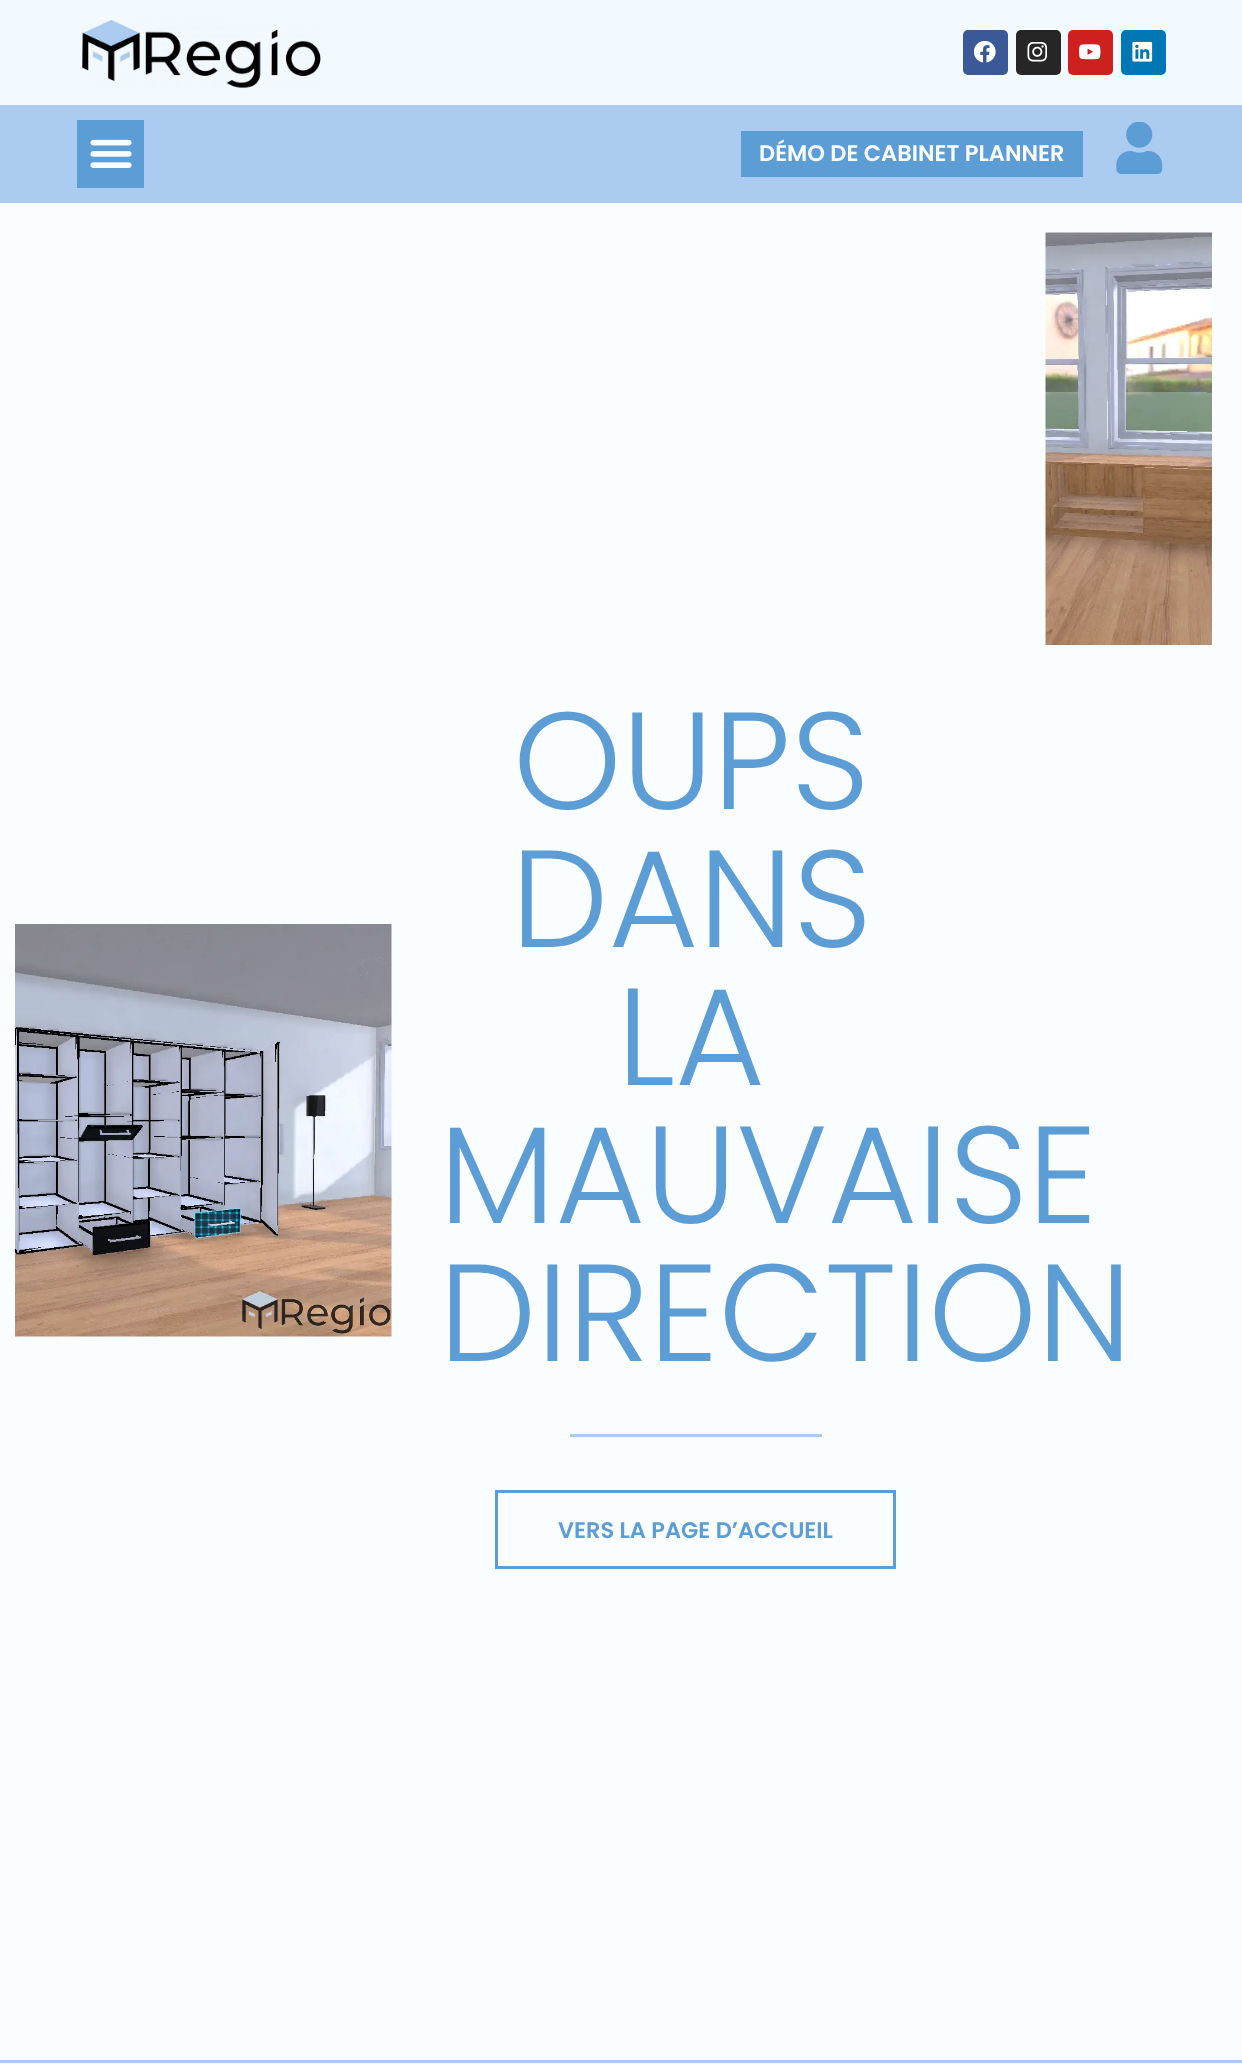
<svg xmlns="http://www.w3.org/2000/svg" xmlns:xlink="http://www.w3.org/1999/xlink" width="1242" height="2064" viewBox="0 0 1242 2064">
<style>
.cls-1{font:600 22.5px Poppins;fill:#fafdff}
.cls-2{font:300 138px Poppins;fill:#5c9dd6}
.cls-3{font:600 22.5px Poppins;fill:#5c9dd6}
</style>
<rect width="100%" height="100%" fill="#fafdff"/>
<rect fill="#f2f9ff" x="0" y="0" width="1242" height="105"/>
<image xlink:href="image0.png" x="82" y="20" width="239" height="69"/>
<rect fill="#3b5998" x="963" y="30" width="45" height="45" rx="5"/>
<image xlink:href="image1.png" x="974" y="41" width="22" height="22"/>
<rect fill="#262626" x="1016" y="30" width="45" height="45" rx="5"/>
<image xlink:href="image2.png" x="1027" y="42" width="21" height="20"/>
<rect fill="#cd201f" x="1068" y="30" width="45" height="45" rx="5"/>
<image xlink:href="image3.png" x="1079" y="44" width="22" height="16"/>
<rect fill="#0077b5" x="1121" y="30" width="45" height="45" rx="5"/>
<image xlink:href="image4.png" x="1132" y="41" width="21" height="21"/>
<rect fill="#abccf0" x="0" y="105" width="1242" height="98"/>
<rect fill="#5c9dd6" x="77" y="120" width="67" height="68"/>
<image xlink:href="image5.png" x="90" y="139" width="42" height="29"/>
<rect fill="#5c9dd6" x="741" y="131" width="342" height="46"/>
<image xlink:href="image6.png" x="1116" y="122" width="47" height="52"/>
<image xlink:href="image7.png" x="1045" y="232" width="167" height="413"/>
<image xlink:href="image8.png" x="15" y="924" width="377" height="413"/>
<rect fill="#abccf0" x="570" y="1434" width="252" height="3"/>
<rect fill="none" stroke="#5c9dd6" stroke-width="3" x="496.5" y="1491.5" width="398" height="76"/>
<rect fill="#f2f9ff" x="0" y="2063" width="1242" height="1"/>
<rect fill="#abccf0" x="0" y="2060" width="1242" height="3"/>
<text class="cls-1" x="759" y="161">DÉMO DE CABINET PLANNER</text>
<text class="cls-2" x="513" y="809">OUPS</text>
<text class="cls-2" x="511" y="947">DANS</text>
<text class="cls-2" x="617" y="1085">LA</text>
<text class="cls-2"><tspan x="439" y="1223">MAUVAISE</tspan><tspan x="439" y="1361">DIRECTION</tspan></text>
<text class="cls-3" x="558" y="1538">VERS LA PAGE D’ACCUEIL</text>
</svg>
